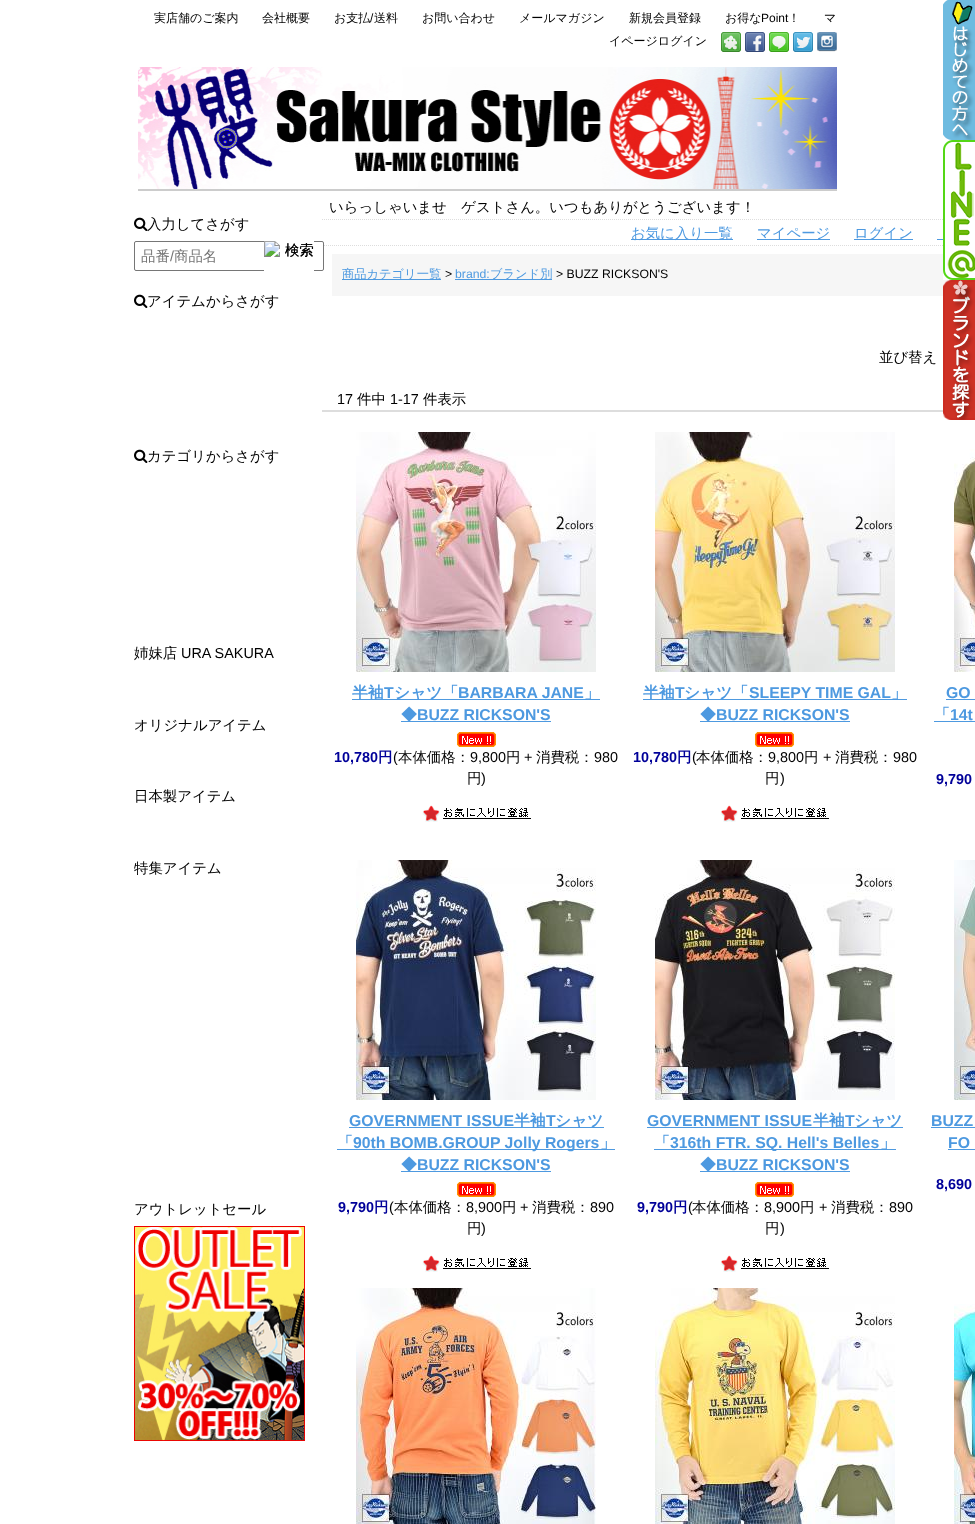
<svg xmlns="http://www.w3.org/2000/svg" xmlns:xlink="http://www.w3.org/1999/xlink" width="975" height="1524" viewBox="0 0 975 1524">
<style>
.cls-1{font:500 12px WenQuanYi Zen Hei;fill:#000000}
.cls-2{font:12px Arimo;fill:#000000}
.cls-3{font:500 14.4px WenQuanYi Zen Hei;fill:#000000}
.cls-4{font:500 14.4px WenQuanYi Zen Hei;fill:#757575}
.cls-5{font:14.4px Liberation Sans;fill:#757575}
.cls-6{font:14.4px Arimo;fill:#000000}
.cls-7{font:500 14.4px WenQuanYi Zen Hei;fill:#4d99e0}
.cls-8{font:500 12.25px WenQuanYi Zen Hei;fill:#4d99e0}
.cls-9{font:12.25px Arimo;fill:#000000}
.cls-10{font:12.25px Arimo;fill:#4d99e0}
.cls-11{font:bold 15.8px WenQuanYi Zen Hei;fill:#4d99e0}
.cls-12{font:bold 15.8px Arimo;fill:#4d99e0}
.cls-13{font:bold 14.4px Arimo;fill:#000099}
.cls-14{font:bold 14.4px WenQuanYi Zen Hei;fill:#000099}
</style>
<rect width="100%" height="100%" fill="#ffffff"/>
<image xlink:href="image0.png" x="943" y="0" width="32" height="140"/>
<image xlink:href="image1.png" x="721" y="32" width="20" height="20"/>
<image xlink:href="image2.png" x="745" y="32" width="20" height="20"/>
<image xlink:href="image3.png" x="769" y="32" width="20" height="20"/>
<image xlink:href="image4.png" x="793" y="32" width="20" height="20"/>
<image xlink:href="image5.png" x="817" y="32" width="20" height="20"/>
<image xlink:href="image6.png" x="138" y="67" width="699" height="122"/>
<rect fill="#cccccc" x="138" y="189" width="699" height="2"/>
<image xlink:href="image7.png" x="134" y="217" width="14" height="14"/>
<path fill="none" stroke="#dddddd" stroke-dasharray="1 1" d="M322 245.5H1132"/>
<rect fill="#ffffff" stroke="#767676" x="134.5" y="241.5" width="189" height="29" rx="1.5"/>
<rect fill="#ffffff" x="264" y="241" width="50" height="30"/>
<image xlink:href="image8.png" x="264" y="241" width="49" height="16"/>
<image xlink:href="image7.png" x="134" y="294" width="14" height="14"/>
<image xlink:href="image7.png" x="134" y="449" width="14" height="14"/>
<image xlink:href="image9.png" x="134" y="1226" width="171" height="215"/>
<path fill="none" stroke="#dddddd" stroke-dasharray="1 1" d="M322 219.5H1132"/>
<rect fill="#4d99e0" x="631" y="239" width="102" height="1"/>
<rect fill="#4d99e0" x="757" y="239" width="73" height="1"/>
<rect fill="#4d99e0" x="854" y="239" width="59" height="1"/>
<rect fill="#4d99e0" x="937" y="239" width="6" height="1"/>
<rect fill="#f6f6f6" x="332" y="254" width="618" height="42"/>
<rect fill="#4d99e0" x="342" y="279" width="99" height="1"/>
<rect fill="#4d99e0" x="455" y="279" width="97" height="1"/>
<rect fill="#dddddd" x="322" y="410" width="621" height="2"/>
<image xlink:href="image10.png" x="356" y="432" width="240" height="240"/>
<rect fill="#4d99e0" x="352" y="699" width="248" height="1"/>
<rect fill="#4d99e0" x="401" y="721" width="150" height="1"/>
<image xlink:href="image11.png" x="457" y="732" width="39" height="15"/>
<image xlink:href="image12.png" x="422" y="805" width="109" height="17"/>
<image xlink:href="image13.png" x="655" y="432" width="240" height="240"/>
<rect fill="#4d99e0" x="643" y="699" width="264" height="1"/>
<rect fill="#4d99e0" x="700" y="721" width="150" height="1"/>
<image xlink:href="image11.png" x="755" y="732" width="39" height="15"/>
<image xlink:href="image12.png" x="720" y="805" width="109" height="17"/>
<image xlink:href="image14.png" x="954" y="449" width="21" height="223"/>
<rect fill="#4d99e0" x="946" y="699" width="29" height="1"/>
<rect fill="#4d99e0" x="934" y="721" width="41" height="1"/>
<image xlink:href="image15.png" x="356" y="860" width="240" height="240"/>
<rect fill="#4d99e0" x="349" y="1127" width="255" height="1"/>
<rect fill="#4d99e0" x="337" y="1149" width="278" height="1"/>
<rect fill="#4d99e0" x="401" y="1171" width="150" height="1"/>
<image xlink:href="image11.png" x="457" y="1182" width="39" height="15"/>
<image xlink:href="image12.png" x="422" y="1255" width="109" height="17"/>
<image xlink:href="image16.png" x="655" y="860" width="240" height="240"/>
<rect fill="#4d99e0" x="647" y="1127" width="256" height="1"/>
<rect fill="#4d99e0" x="654" y="1149" width="242" height="1"/>
<rect fill="#4d99e0" x="700" y="1171" width="150" height="1"/>
<image xlink:href="image11.png" x="755" y="1182" width="39" height="15"/>
<image xlink:href="image12.png" x="720" y="1255" width="109" height="17"/>
<image xlink:href="image17.png" x="954" y="860" width="21" height="240"/>
<rect fill="#4d99e0" x="931" y="1127" width="44" height="1"/>
<rect fill="#4d99e0" x="948" y="1149" width="27" height="1"/>
<image xlink:href="image18.png" x="356" y="1288" width="240" height="236"/>
<image xlink:href="image19.png" x="655" y="1288" width="240" height="236"/>
<image xlink:href="image20.png" x="954" y="1304" width="21" height="220"/>
<image xlink:href="image21.png" x="943" y="140" width="32" height="140"/>
<image xlink:href="image22.png" x="943" y="280" width="32" height="140"/>
<text class="cls-1" x="154" y="22">実店舗のご案内</text>
<text class="cls-1" x="262" y="22">会社概要</text>
<text class="cls-1" x="334" y="22">お支払 送料</text>
<text class="cls-1" x="422" y="22">お問い合わせ</text>
<text class="cls-1" x="519" y="22">メールマガジン</text>
<text class="cls-1" x="629" y="22">新規会員登録</text>
<text class="cls-1" x="725" y="22">お得な</text>
<text class="cls-2" x="370" y="22">/</text>
<text class="cls-2" x="761" y="22">Point</text>
<text class="cls-1" x="788" y="22">！</text>
<text class="cls-1" x="824" y="22">マ</text>
<text class="cls-1" x="609" y="45">イページログイン</text>
<text class="cls-3" x="147" y="229">入力してさがす</text>
<text class="cls-4" x="141" y="261">品番</text>
<text class="cls-5" x="170" y="261">/</text>
<text class="cls-4" x="174" y="261">商品名</text>
<text class="cls-3" x="285" y="255">検索</text>
<text class="cls-3" x="147" y="306">アイテムからさがす</text>
<text class="cls-3" x="147" y="461">カテゴリからさがす</text>
<text class="cls-3" x="134" y="658">姉妹店</text>
<text class="cls-6" x="181" y="658">URA SAKURA</text>
<text class="cls-3" x="134" y="730">オリジナルアイテム</text>
<text class="cls-3" x="134" y="801">日本製アイテム</text>
<text class="cls-3" x="134" y="873">特集アイテム</text>
<text class="cls-3" x="134" y="1214">アウトレットセール</text>
<text class="cls-3" x="329" y="212">いらっしゃいませ　ゲストさん。いつもありがとうございます！</text>
<text class="cls-7" x="631" y="238">お気に入り一覧</text>
<text class="cls-7" x="757" y="238">マイページ</text>
<text class="cls-7" x="854" y="238">ログイン</text>
<text class="cls-8" x="342" y="278">商品カテゴリ一覧</text>
<text class="cls-9" x="445" y="278">&gt;</text>
<text class="cls-10" x="455" y="278">brand:</text>
<text class="cls-8" x="490" y="278">ブランド別</text>
<text class="cls-9" x="556" y="278">&gt; BUZZ RICKSON'S</text>
<text class="cls-3" x="879" y="362">並び替え</text>
<text class="cls-6" x="337" y="404">17</text>
<text class="cls-3" x="357" y="404">件中</text>
<text class="cls-6" x="390" y="404">1-17</text>
<text class="cls-3" x="423" y="404">件表示</text>
<text class="cls-11" x="352" y="698">半袖</text>
<text class="cls-12" x="384" y="698">T</text>
<text class="cls-11" x="394" y="698">シャツ「</text>
<text class="cls-12" x="458" y="698">BARBARA JANE</text>
<text class="cls-11" x="584" y="698">」</text>
<text class="cls-11" x="401" y="720">◆</text>
<text class="cls-12" x="417" y="720">BUZZ RICKSON'S</text>
<text class="cls-13" x="334" y="762">10,780</text>
<text class="cls-14" x="378" y="762">円</text>
<text class="cls-6" x="393" y="762">(</text>
<text class="cls-3" x="398" y="762">本体価格：</text>
<text class="cls-6" x="470" y="762">9,800</text>
<text class="cls-3" x="506" y="762">円</text>
<text class="cls-6" x="524" y="762">+</text>
<text class="cls-3" x="536" y="762">消費税：</text>
<text class="cls-6" x="594" y="762">980</text>
<text class="cls-3" x="467" y="783">円</text>
<text class="cls-6" x="481" y="783">)</text>
<text class="cls-11" x="643" y="698">半袖</text>
<text class="cls-12" x="675" y="698">T</text>
<text class="cls-11" x="684" y="698">シャツ「</text>
<text class="cls-12" x="749" y="698">SLEEPY TIME GAL</text>
<text class="cls-11" x="891" y="698">」</text>
<text class="cls-11" x="700" y="720">◆</text>
<text class="cls-12" x="716" y="720">BUZZ RICKSON'S</text>
<text class="cls-13" x="633" y="762">10,780</text>
<text class="cls-14" x="677" y="762">円</text>
<text class="cls-6" x="692" y="762">(</text>
<text class="cls-3" x="696" y="762">本体価格：</text>
<text class="cls-6" x="768" y="762">9,800</text>
<text class="cls-3" x="804" y="762">円</text>
<text class="cls-6" x="823" y="762">+</text>
<text class="cls-3" x="835" y="762">消費税：</text>
<text class="cls-6" x="893" y="762">980</text>
<text class="cls-3" x="765" y="783">円</text>
<text class="cls-6" x="780" y="783">)</text>
<text class="cls-12" x="946" y="698">GO</text>
<text class="cls-11" x="934" y="720">「</text>
<text class="cls-12" x="950" y="720">14t</text>
<text class="cls-13" x="936" y="784">9,790</text>
<text class="cls-12" x="349" y="1126">GOVERNMENT ISSUE</text>
<text class="cls-11" x="514" y="1126">半袖</text>
<text class="cls-12" x="546" y="1126">T</text>
<text class="cls-11" x="555" y="1126">シャツ</text>
<text class="cls-11" x="337" y="1148">「</text>
<text class="cls-12" x="353" y="1148">90th BOMB.GROUP Jolly Rogers</text>
<text class="cls-11" x="600" y="1148">」</text>
<text class="cls-11" x="401" y="1170">◆</text>
<text class="cls-12" x="417" y="1170">BUZZ RICKSON'S</text>
<text class="cls-13" x="338" y="1212">9,790</text>
<text class="cls-14" x="374" y="1212">円</text>
<text class="cls-6" x="389" y="1212">(</text>
<text class="cls-3" x="394" y="1212">本体価格：</text>
<text class="cls-6" x="466" y="1212">8,900</text>
<text class="cls-3" x="502" y="1212">円</text>
<text class="cls-6" x="520" y="1212">+</text>
<text class="cls-3" x="532" y="1212">消費税：</text>
<text class="cls-6" x="590" y="1212">890</text>
<text class="cls-3" x="467" y="1233">円</text>
<text class="cls-6" x="481" y="1233">)</text>
<text class="cls-12" x="647" y="1126">GOVERNMENT ISSUE</text>
<text class="cls-11" x="813" y="1126">半袖</text>
<text class="cls-12" x="845" y="1126">T</text>
<text class="cls-11" x="854" y="1126">シャツ</text>
<text class="cls-11" x="654" y="1148">「</text>
<text class="cls-12" x="670" y="1148">316th FTR. SQ. Hell's Belles</text>
<text class="cls-11" x="880" y="1148">」</text>
<text class="cls-11" x="700" y="1170">◆</text>
<text class="cls-12" x="716" y="1170">BUZZ RICKSON'S</text>
<text class="cls-13" x="637" y="1212">9,790</text>
<text class="cls-14" x="673" y="1212">円</text>
<text class="cls-6" x="688" y="1212">(</text>
<text class="cls-3" x="692" y="1212">本体価格：</text>
<text class="cls-6" x="764" y="1212">8,900</text>
<text class="cls-3" x="800" y="1212">円</text>
<text class="cls-6" x="819" y="1212">+</text>
<text class="cls-3" x="831" y="1212">消費税：</text>
<text class="cls-6" x="889" y="1212">890</text>
<text class="cls-3" x="765" y="1233">円</text>
<text class="cls-6" x="780" y="1233">)</text>
<text class="cls-12" x="931" y="1126">BUZZ</text>
<text class="cls-12" x="948" y="1148">FO</text>
<text class="cls-13" x="936" y="1189">8,690</text>
</svg>
